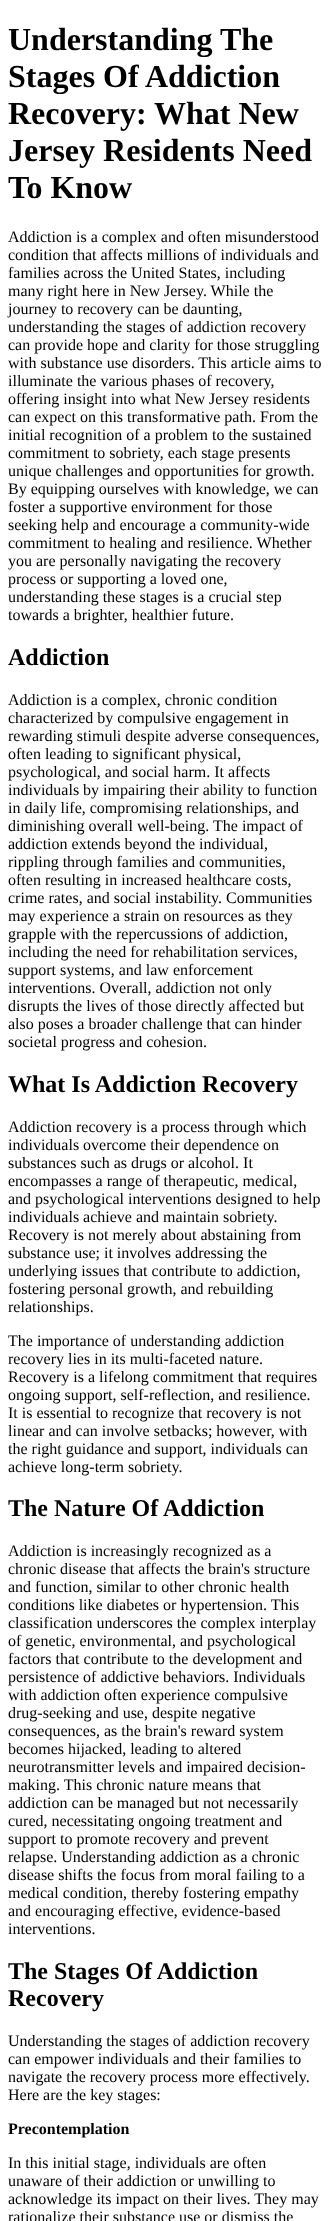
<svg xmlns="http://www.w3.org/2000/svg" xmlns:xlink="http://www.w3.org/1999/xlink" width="330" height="2221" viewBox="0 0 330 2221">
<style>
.cls-1{font:bold 32px Liberation Serif;fill:#000000}
.cls-2{font:16px Liberation Serif;fill:#000000}
.cls-3{font:bold 24px Liberation Serif;fill:#000000}
.cls-4{font:bold 16px Liberation Serif;fill:#000000}
</style>
<rect width="100%" height="100%" fill="#ffffff"/>
<text class="cls-1"><tspan x="8" y="50">Understanding The</tspan><tspan x="8" y="87">Stages Of Addiction</tspan><tspan x="8" y="124">Recovery: What New</tspan><tspan x="8" y="161">Jersey Residents Need</tspan><tspan x="8" y="198">To Know</tspan></text>
<text class="cls-2"><tspan x="8" y="242">Addiction is a complex and often misunderstood</tspan><tspan x="8" y="260">condition that affects millions of individuals and</tspan><tspan x="8" y="278">families across the United States, including</tspan><tspan x="8" y="296">many right here in New Jersey. While the</tspan><tspan x="8" y="314">journey to recovery can be daunting,</tspan><tspan x="8" y="332">understanding the stages of addiction recovery</tspan><tspan x="8" y="350">can provide hope and clarity for those struggling</tspan><tspan x="8" y="368">with substance use disorders. This article aims to</tspan><tspan x="8" y="386">illuminate the various phases of recovery,</tspan><tspan x="8" y="404">offering insight into what New Jersey residents</tspan><tspan x="8" y="422">can expect on this transformative path. From the</tspan><tspan x="8" y="440">initial recognition of a problem to the sustained</tspan><tspan x="8" y="458">commitment to sobriety, each stage presents</tspan><tspan x="8" y="476">unique challenges and opportunities for growth.</tspan><tspan x="8" y="494">By equipping ourselves with knowledge, we can</tspan><tspan x="8" y="512">foster a supportive environment for those</tspan><tspan x="8" y="530">seeking help and encourage a community-wide</tspan><tspan x="8" y="548">commitment to healing and resilience. Whether</tspan><tspan x="8" y="566">you are personally navigating the recovery</tspan><tspan x="8" y="584">process or supporting a loved one,</tspan><tspan x="8" y="602">understanding these stages is a crucial step</tspan><tspan x="8" y="620">towards a brighter, healthier future.</tspan></text>
<text class="cls-3" x="8" y="665">Addiction</text>
<text class="cls-2"><tspan x="8" y="705">Addiction is a complex, chronic condition</tspan><tspan x="8" y="723">characterized by compulsive engagement in</tspan><tspan x="8" y="741">rewarding stimuli despite adverse consequences,</tspan><tspan x="8" y="759">often leading to significant physical,</tspan><tspan x="8" y="777">psychological, and social harm. It affects</tspan><tspan x="8" y="795">individuals by impairing their ability to function</tspan><tspan x="8" y="813">in daily life, compromising relationships, and</tspan><tspan x="8" y="831">diminishing overall well-being. The impact of</tspan><tspan x="8" y="849">addiction extends beyond the individual,</tspan><tspan x="8" y="867">rippling through families and communities,</tspan><tspan x="8" y="885">often resulting in increased healthcare costs,</tspan><tspan x="8" y="903">crime rates, and social instability. Communities</tspan><tspan x="8" y="921">may experience a strain on resources as they</tspan><tspan x="8" y="939">grapple with the repercussions of addiction,</tspan><tspan x="8" y="957">including the need for rehabilitation services,</tspan><tspan x="8" y="975">support systems, and law enforcement</tspan><tspan x="8" y="993">interventions. Overall, addiction not only</tspan><tspan x="8" y="1011">disrupts the lives of those directly affected but</tspan><tspan x="8" y="1029">also poses a broader challenge that can hinder</tspan><tspan x="8" y="1047">societal progress and cohesion.</tspan></text>
<text class="cls-3" x="8" y="1092">What Is Addiction Recovery</text>
<text class="cls-2"><tspan x="8" y="1132">Addiction recovery is a process through which</tspan><tspan x="8" y="1150">individuals overcome their dependence on</tspan><tspan x="8" y="1168">substances such as drugs or alcohol. It</tspan><tspan x="8" y="1186">encompasses a range of therapeutic, medical,</tspan><tspan x="8" y="1204">and psychological interventions designed to help</tspan><tspan x="8" y="1222">individuals achieve and maintain sobriety.</tspan><tspan x="8" y="1240">Recovery is not merely about abstaining from</tspan><tspan x="8" y="1258">substance use; it involves addressing the</tspan><tspan x="8" y="1276">underlying issues that contribute to addiction,</tspan><tspan x="8" y="1294">fostering personal growth, and rebuilding</tspan><tspan x="8" y="1312">relationships.</tspan></text>
<text class="cls-2"><tspan x="8" y="1346">The importance of understanding addiction</tspan><tspan x="8" y="1364">recovery lies in its multi-faceted nature.</tspan><tspan x="8" y="1382">Recovery is a lifelong commitment that requires</tspan><tspan x="8" y="1400">ongoing support, self-reflection, and resilience.</tspan><tspan x="8" y="1418">It is essential to recognize that recovery is not</tspan><tspan x="8" y="1436">linear and can involve setbacks; however, with</tspan><tspan x="8" y="1454">the right guidance and support, individuals can</tspan><tspan x="8" y="1472">achieve long-term sobriety.</tspan></text>
<text class="cls-3" x="8" y="1516">The Nature Of Addiction</text>
<text class="cls-2"><tspan x="8" y="1556">Addiction is increasingly recognized as a</tspan><tspan x="8" y="1574">chronic disease that affects the brain's structure</tspan><tspan x="8" y="1592">and function, similar to other chronic health</tspan><tspan x="8" y="1610">conditions like diabetes or hypertension. This</tspan><tspan x="8" y="1628">classification underscores the complex interplay</tspan><tspan x="8" y="1646">of genetic, environmental, and psychological</tspan><tspan x="8" y="1664">factors that contribute to the development and</tspan><tspan x="8" y="1682">persistence of addictive behaviors. Individuals</tspan><tspan x="8" y="1700">with addiction often experience compulsive</tspan><tspan x="8" y="1718">drug-seeking and use, despite negative</tspan><tspan x="8" y="1736">consequences, as the brain's reward system</tspan><tspan x="8" y="1754">becomes hijacked, leading to altered</tspan><tspan x="8" y="1772">neurotransmitter levels and impaired decision-</tspan><tspan x="8" y="1790">making. This chronic nature means that</tspan><tspan x="8" y="1808">addiction can be managed but not necessarily</tspan><tspan x="8" y="1826">cured, necessitating ongoing treatment and</tspan><tspan x="8" y="1844">support to promote recovery and prevent</tspan><tspan x="8" y="1862">relapse. Understanding addiction as a chronic</tspan><tspan x="8" y="1880">disease shifts the focus from moral failing to a</tspan><tspan x="8" y="1898">medical condition, thereby fostering empathy</tspan><tspan x="8" y="1916">and encouraging effective, evidence-based</tspan><tspan x="8" y="1934">interventions.</tspan></text>
<text class="cls-3"><tspan x="8" y="1979">The Stages Of Addiction</tspan><tspan x="8" y="2006">Recovery</tspan></text>
<text class="cls-2"><tspan x="8" y="2046">Understanding the stages of addiction recovery</tspan><tspan x="8" y="2064">can empower individuals and their families to</tspan><tspan x="8" y="2082">navigate the recovery process more effectively.</tspan><tspan x="8" y="2100">Here are the key stages:</tspan></text>
<text class="cls-4" x="8" y="2134">Precontemplation</text>
<text class="cls-2"><tspan x="8" y="2168">In this initial stage, individuals are often</tspan><tspan x="8" y="2186">unaware of their addiction or unwilling to</tspan><tspan x="8" y="2204">acknowledge its impact on their lives. They may</tspan><tspan x="8" y="2222">rationalize their substance use or dismiss the</tspan></text>
</svg>
